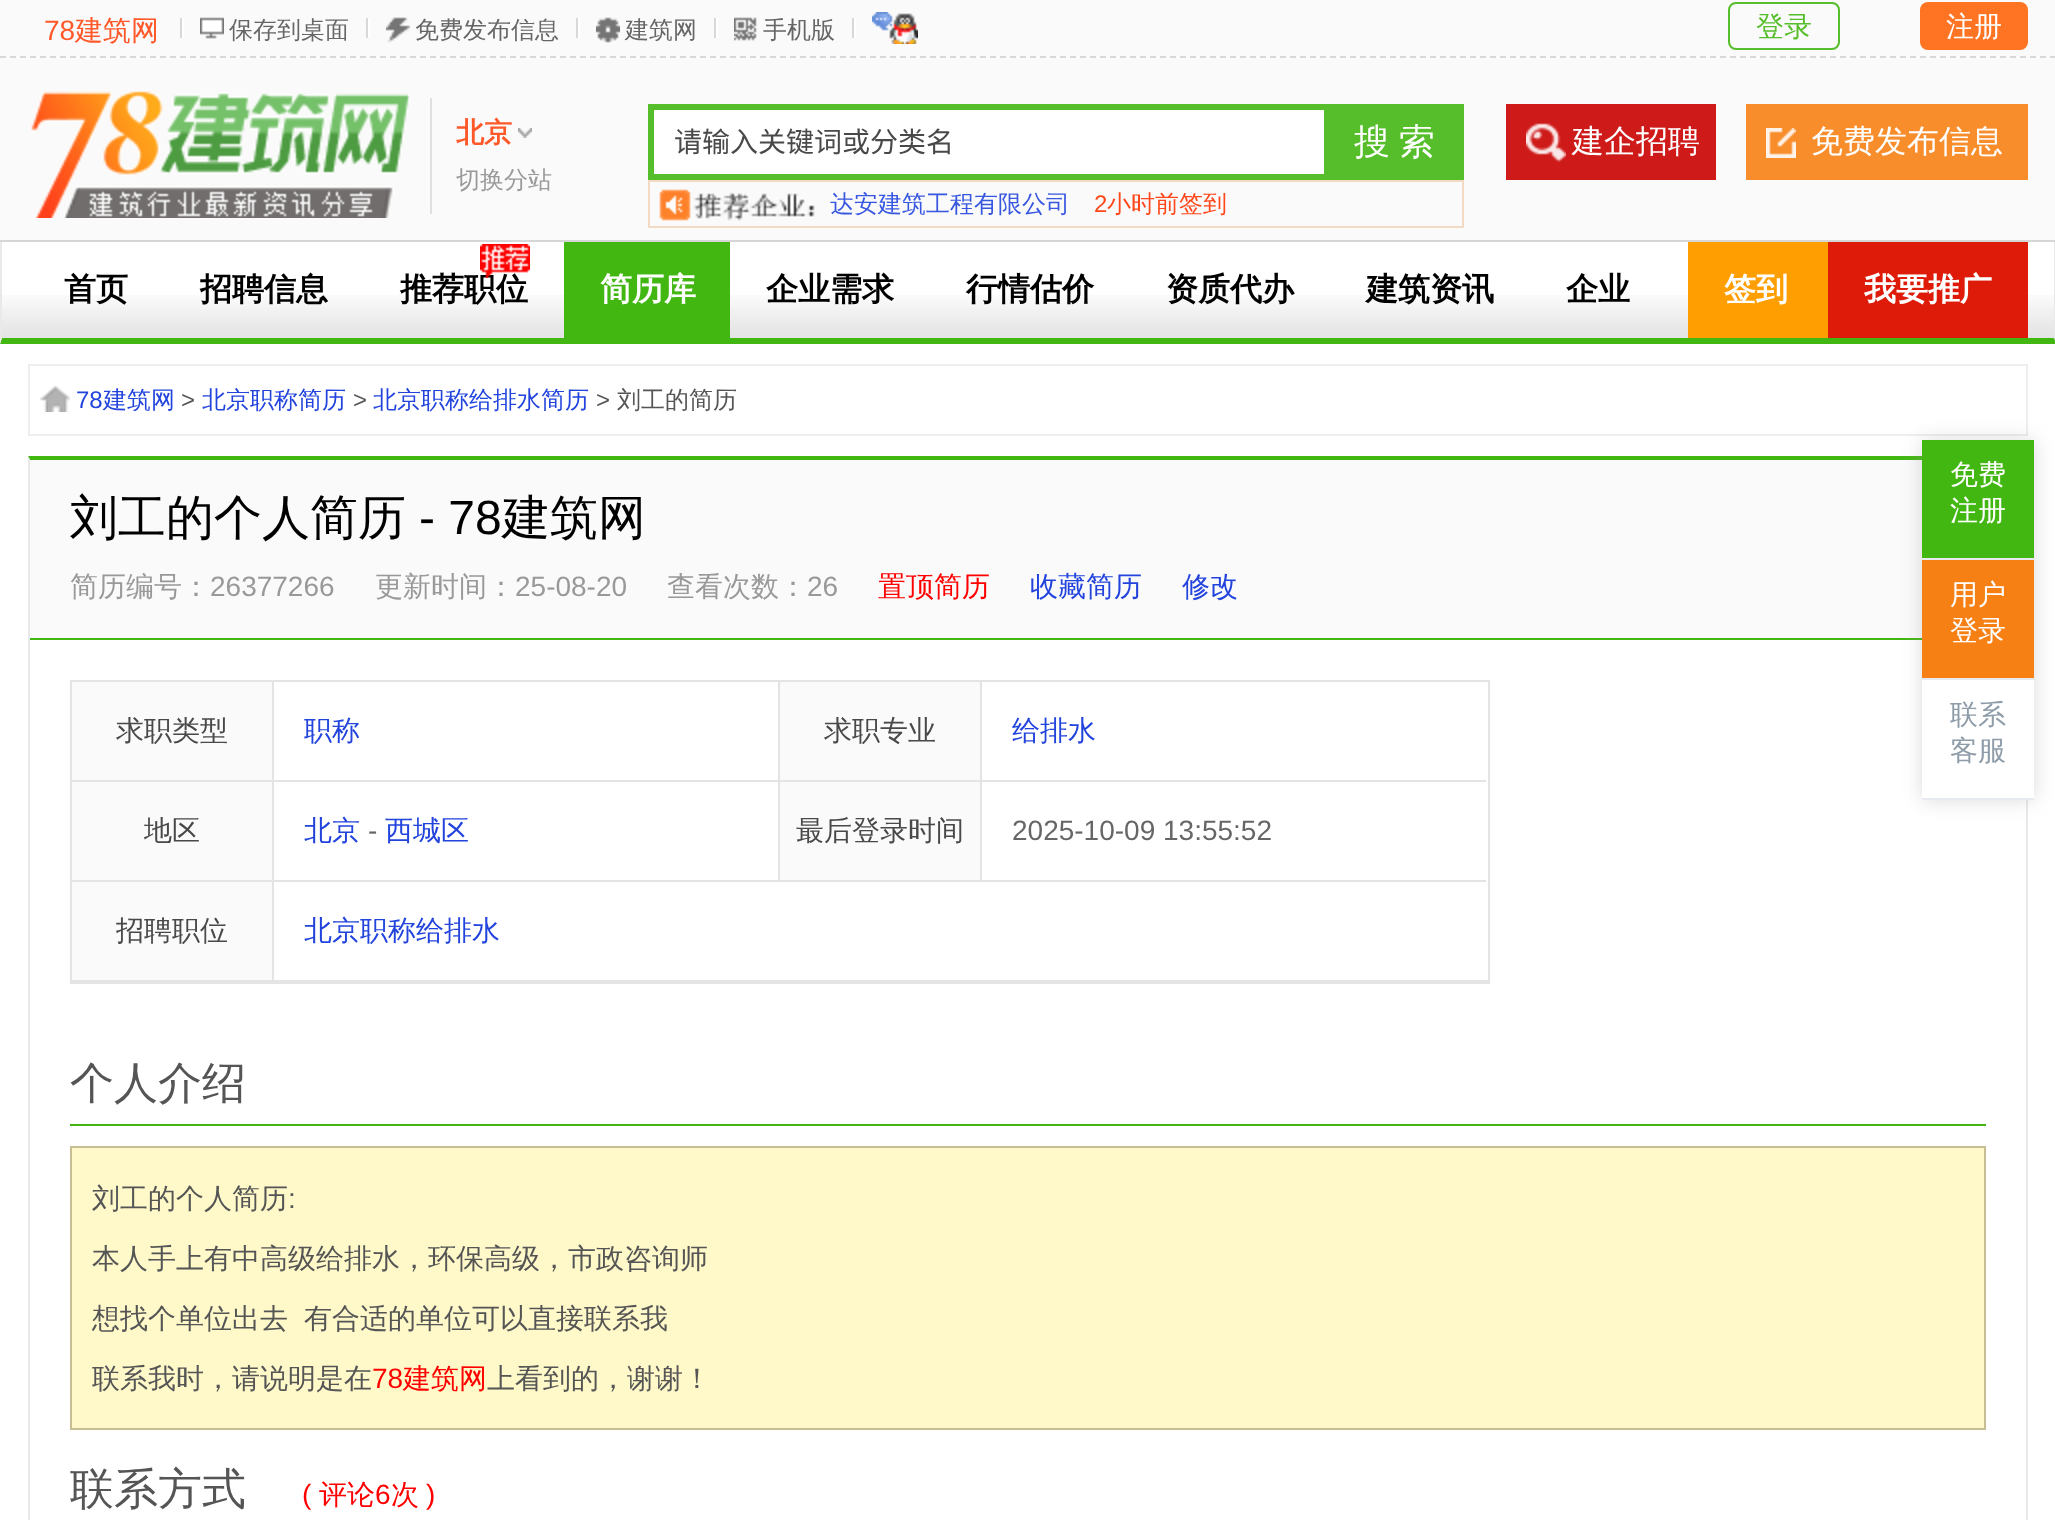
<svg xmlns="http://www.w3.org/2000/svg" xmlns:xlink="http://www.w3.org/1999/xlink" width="2055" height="1520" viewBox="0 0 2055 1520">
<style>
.cls-1{font:28px Liberation Sans;fill:#ff5929}
.cls-2{font:500 28px WenQuanYi Zen Hei;fill:#ff5929}
.cls-3{font:500 24px WenQuanYi Zen Hei;fill:#666666}
.cls-4{font:500 28px WenQuanYi Zen Hei;fill:#55be2a}
.cls-5{font:500 28px WenQuanYi Zen Hei;fill:#ffffff}
.cls-6{font:bold 28px WenQuanYi Zen Hei;fill:#ff5929}
.cls-7{font:500 24px WenQuanYi Zen Hei;fill:#999999}
.cls-8{font:28px Noto Sans CJK SC;fill:#494949}
.cls-9{font:500 36px WenQuanYi Zen Hei;fill:#ffffff}
.cls-10{font:500 24px WenQuanYi Zen Hei;fill:#3857e0}
.cls-11{font:24px Liberation Sans;fill:#ff471a}
.cls-12{font:500 24px WenQuanYi Zen Hei;fill:#ff471a}
.cls-13{font:500 32px WenQuanYi Zen Hei;fill:#ffffff}
.cls-14{font:bold 32px WenQuanYi Zen Hei;fill:#000000}
.cls-15{font:bold 32px WenQuanYi Zen Hei;fill:#ffffff}
.cls-16{font:24px Liberation Sans;fill:#2244dd}
.cls-17{font:500 24px WenQuanYi Zen Hei;fill:#2244dd}
.cls-18{font:24px Liberation Sans;fill:#555555}
.cls-19{font:500 24px WenQuanYi Zen Hei;fill:#555555}
.cls-20{font:500 48px WenQuanYi Zen Hei;fill:#000000}
.cls-21{font:48px Liberation Sans;fill:#000000}
.cls-22{font:500 28px WenQuanYi Zen Hei;fill:#999999}
.cls-23{font:28px Liberation Sans;fill:#999999}
.cls-24{font:500 28px WenQuanYi Zen Hei;fill:#ff0000}
.cls-25{font:500 28px WenQuanYi Zen Hei;fill:#2244dd}
.cls-26{font:500 28px WenQuanYi Zen Hei;fill:#494949}
.cls-27{font:28px Liberation Sans;fill:#666666}
.cls-28{font:500 44px WenQuanYi Zen Hei;fill:#555555}
.cls-29{font:500 28px WenQuanYi Zen Hei;fill:#555555}
.cls-30{font:28px Liberation Sans;fill:#555555}
.cls-31{font:28px Liberation Sans;fill:#ff0000}
.cls-32{font:500 28px WenQuanYi Zen Hei;fill:#8e9ca9}
</style>
<rect width="100%" height="100%" fill="#ffffff"/>
<rect fill="#f9f9f9" fill-opacity="0.9" x="0" y="0" width="2055" height="240"/>
<image xlink:href="image10.png" x="0" y="295" width="2055" height="47"/>
<path fill="#e9e9e9" d="M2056 240V344L2054 338V242Z"/>
<path fill="#42b712" d="M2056 344H0L2 338H2054Z"/>
<path fill="#e9e9e9" d="M0 344V240L2 242V338Z"/>
<rect fill="#d6d6d6" x="0" y="240" width="2055" height="2"/>
<path fill="none" stroke="#d8d8d8" stroke-width="2" stroke-dasharray="6 4" d="M0 57H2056"/>
<rect fill="#ffffff" x="182" y="18" width="2" height="20"/>
<rect fill="#d8d8d8" x="180" y="18" width="2" height="20"/>
<image xlink:href="image0.png" x="200" y="17" width="24" height="22"/>
<rect fill="#ffffff" x="368" y="18" width="2" height="20"/>
<rect fill="#d8d8d8" x="366" y="18" width="2" height="20"/>
<image xlink:href="image1.png" x="386" y="17" width="24" height="26"/>
<rect fill="#ffffff" x="578" y="18" width="2" height="20"/>
<rect fill="#d8d8d8" x="576" y="18" width="2" height="20"/>
<image xlink:href="image2.png" x="596" y="17" width="24" height="26"/>
<rect fill="#ffffff" x="716" y="18" width="2" height="20"/>
<rect fill="#d8d8d8" x="714" y="18" width="2" height="20"/>
<image xlink:href="image3.png" x="734" y="17" width="23" height="24"/>
<rect fill="#ffffff" x="854" y="18" width="2" height="20"/>
<rect fill="#d8d8d8" x="852" y="18" width="2" height="20"/>
<image xlink:href="image4.png" x="872" y="12" width="46" height="32"/>
<rect fill="none" stroke="#55be2a" stroke-width="2" x="1729" y="3" width="110" height="46" rx="7"/>
<rect fill="#ff7423" x="1920" y="2" width="108" height="48" rx="8"/>
<image xlink:href="image5.png" x="31" y="91" width="379" height="127"/>
<rect fill="#e0e0e0" x="430" y="98" width="2" height="116"/>
<image xlink:href="image6.png" x="518" y="128" width="14" height="10"/>
<rect fill="#ffffff" x="654" y="110" width="670" height="64"/>
<rect fill="#55be2a" x="648" y="104" width="676" height="6"/>
<rect fill="#55be2a" x="648" y="174" width="676" height="6"/>
<rect fill="#55be2a" x="648" y="104" width="6" height="76"/>
<rect fill="#55be2a" x="1324" y="104" width="140" height="76"/>
<image xlink:href="image7.png" x="659" y="189" width="156" height="32"/>
<rect fill="none" stroke="#f3dac4" stroke-width="2" x="649" y="181" width="814" height="46"/>
<rect fill="#cf1a1a" x="1506" y="104" width="210" height="76"/>
<image xlink:href="image8.png" x="1526" y="123" width="40" height="39"/>
<rect fill="#f88d2c" x="1746" y="104" width="282" height="76"/>
<image xlink:href="image9.png" x="1766" y="128" width="30" height="30"/>
<rect fill="#42b712" x="564" y="242" width="166" height="96"/>
<rect fill="#ff9e00" x="1688" y="242" width="140" height="96"/>
<rect fill="#de1b08" x="1828" y="242" width="200" height="96"/>
<image xlink:href="image12.png" x="40" y="386" width="30" height="26"/>
<rect fill="none" stroke="#eeeeee" stroke-width="2" x="29" y="365" width="1998" height="70"/>
<path fill="#42b712" d="M28 456H2028L2026 460H30Z"/>
<path fill="#e9e9e9" d="M2028 456V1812L2026 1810V460Z"/>
<path fill="#e9e9e9" d="M28 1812V456L30 460V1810Z"/>
<rect fill="#fafafa" x="30" y="460" width="1892" height="178"/>
<rect fill="#42b712" x="30" y="638" width="1892" height="2"/>
<rect fill="#e4e4e4" x="70" y="982" width="1420" height="2"/>
<rect fill="#e4e4e4" x="70" y="680" width="1420" height="2"/>
<rect fill="#e4e4e4" x="1488" y="680" width="2" height="302"/>
<rect fill="#e4e4e4" x="70" y="780" width="1416" height="2"/>
<rect fill="#fafafa" x="72" y="682" width="200" height="98"/>
<rect fill="#e4e4e4" x="272" y="682" width="2" height="98"/>
<rect fill="#e4e4e4" x="70" y="682" width="2" height="98"/>
<rect fill="#fafafa" x="780" y="682" width="200" height="98"/>
<rect fill="#e4e4e4" x="980" y="682" width="2" height="98"/>
<rect fill="#e4e4e4" x="778" y="682" width="2" height="98"/>
<rect fill="#e4e4e4" x="70" y="880" width="1416" height="2"/>
<rect fill="#fafafa" x="72" y="782" width="200" height="98"/>
<rect fill="#e4e4e4" x="272" y="782" width="2" height="98"/>
<rect fill="#e4e4e4" x="70" y="782" width="2" height="98"/>
<rect fill="#fafafa" x="780" y="782" width="200" height="98"/>
<rect fill="#e4e4e4" x="980" y="782" width="2" height="98"/>
<rect fill="#e4e4e4" x="778" y="782" width="2" height="98"/>
<rect fill="#e4e4e4" x="70" y="980" width="1418" height="2"/>
<rect fill="#fafafa" x="72" y="882" width="200" height="98"/>
<rect fill="#e4e4e4" x="272" y="882" width="2" height="98"/>
<rect fill="#e4e4e4" x="70" y="882" width="2" height="98"/>
<rect fill="#42b712" x="70" y="1124" width="1916" height="2"/>
<rect fill="#fff9c9" stroke="#c7bf93" stroke-width="2" x="71" y="1147" width="1914" height="282"/>
<rect fill="#999999" fill-opacity="0.35" filter="blur(10px)" x="1922" y="440" width="112" height="360"/>
<rect fill="#ffffff" x="1922" y="680" width="112" height="118"/>
<rect fill="#42b712" x="1922" y="440" width="112" height="118"/>
<rect fill="#e7eaf1" x="1922" y="558" width="112" height="2"/>
<rect fill="#f78015" x="1922" y="560" width="112" height="118"/>
<rect fill="#e7eaf1" x="1922" y="678" width="112" height="2"/>
<rect fill="#e7eaf1" x="1922" y="798" width="112" height="2"/>
<text class="cls-1" x="44" y="40">78</text>
<text class="cls-2" x="75" y="40">建筑网</text>
<text class="cls-3" x="229" y="38">保存到桌面</text>
<text class="cls-3" x="415" y="38">免费发布信息</text>
<text class="cls-3" x="625" y="38">建筑网</text>
<text class="cls-3" x="763" y="38">手机版</text>
<text class="cls-4" x="1756" y="36">登录</text>
<text class="cls-5" x="1946" y="36">注册</text>
<text class="cls-6" x="456" y="142">北京</text>
<text class="cls-7" x="456" y="188">切换分站</text>
<text class="cls-8" x="674" y="152">请输入关键词或分类名</text>
<text class="cls-9" x="1354" y="154" word-spacing="-2">搜 索</text>
<text class="cls-10" x="830" y="212">达安建筑工程有限公司</text>
<text class="cls-11" x="1094" y="212">2</text>
<text class="cls-12" x="1107" y="212">小时前签到</text>
<text class="cls-13" x="1572" y="152">建企招聘</text>
<text class="cls-13" x="1811" y="152">免费发布信息</text>
<text class="cls-14" x="64" y="300">首页</text>
<text class="cls-14" x="200" y="300">招聘信息</text>
<text class="cls-14" x="400" y="300">推荐职位</text>
<image xlink:href="image11.png" x="480" y="244" width="50" height="34"/>
<text class="cls-15" x="600" y="300">简历库</text>
<text class="cls-14" x="766" y="300">企业需求</text>
<text class="cls-14" x="966" y="300">行情估价</text>
<text class="cls-14" x="1166" y="300">资质代办</text>
<text class="cls-14" x="1366" y="300">建筑资讯</text>
<text class="cls-14" x="1566" y="300">企业</text>
<text class="cls-15" x="1724" y="300">签到</text>
<text class="cls-15" x="1864" y="300">我要推广</text>
<text class="cls-16" x="76" y="408">78</text>
<text class="cls-17" x="103" y="408">建筑网</text>
<text class="cls-18" x="181" y="408">&gt;</text>
<text class="cls-17" x="202" y="408">北京职称简历</text>
<text class="cls-18" x="353" y="408">&gt;</text>
<text class="cls-17" x="373" y="408">北京职称给排水简历</text>
<text class="cls-18" x="596" y="408">&gt;</text>
<text class="cls-19" x="617" y="408">刘工的简历</text>
<text class="cls-20" x="70" y="534">刘工的个人简历</text>
<text class="cls-21" x="419" y="534">- 78</text>
<text class="cls-20" x="502" y="534">建筑网</text>
<text class="cls-22" x="70" y="596">简历编号：</text>
<text class="cls-23" x="210" y="596">26377266</text>
<text class="cls-22" x="375" y="596">更新时间：</text>
<text class="cls-23" x="515" y="596">25-08-20</text>
<text class="cls-22" x="667" y="596">查看次数：</text>
<text class="cls-23" x="807" y="596">26</text>
<text class="cls-24" x="878" y="596">置顶简历</text>
<text class="cls-25" x="1030" y="596">收藏简历</text>
<text class="cls-25" x="1182" y="596">修改</text>
<text class="cls-26" x="116" y="740">求职类型</text>
<text class="cls-25" x="304" y="740">职称</text>
<text class="cls-26" x="824" y="740">求职专业</text>
<text class="cls-25" x="1012" y="740">给排水</text>
<text class="cls-26" x="144" y="840">地区</text>
<text class="cls-25" x="304" y="840">北京</text>
<text class="cls-27" x="368" y="840">-</text>
<text class="cls-25" x="385" y="840">西城区</text>
<text class="cls-26" x="796" y="840">最后登录时间</text>
<text class="cls-27" x="1012" y="840">2025-10-09 13:55:52</text>
<text class="cls-26" x="116" y="940">招聘职位</text>
<text class="cls-25" x="304" y="940">北京职称给排水</text>
<text class="cls-28" x="70" y="1098">个人介绍</text>
<text class="cls-29" x="92" y="1208">刘工的个人简历</text>
<text class="cls-30" x="288" y="1208">:</text>
<text class="cls-29" x="92" y="1268">本人手上有中高级给排水，环保高级，市政咨询师</text>
<text class="cls-29" x="92" y="1328">想找个单位出去</text>
<text class="cls-29" x="304" y="1328">有合适的单位可以直接联系我</text>
<text class="cls-29" x="92" y="1388">联系我时，请说明是在</text>
<text class="cls-31" x="372" y="1388">78</text>
<text class="cls-24" x="403" y="1388">建筑网</text>
<text class="cls-29" x="487" y="1388">上看到的，谢谢！</text>
<text class="cls-28" x="70" y="1504">联系方式</text>
<text class="cls-31" x="302" y="1504">(</text>
<text class="cls-24" x="319" y="1504">评论</text>
<text class="cls-31" x="375" y="1504">6</text>
<text class="cls-24" x="391" y="1504">次</text>
<text class="cls-31" x="426" y="1504">)</text>
<text class="cls-5"><tspan x="1950" y="484">免费</tspan><tspan x="1950" y="520">注册</tspan></text>
<text class="cls-5"><tspan x="1950" y="604">用户</tspan><tspan x="1950" y="640">登录</tspan></text>
<text class="cls-32"><tspan x="1950" y="724">联系</tspan><tspan x="1950" y="760">客服</tspan></text>
</svg>
